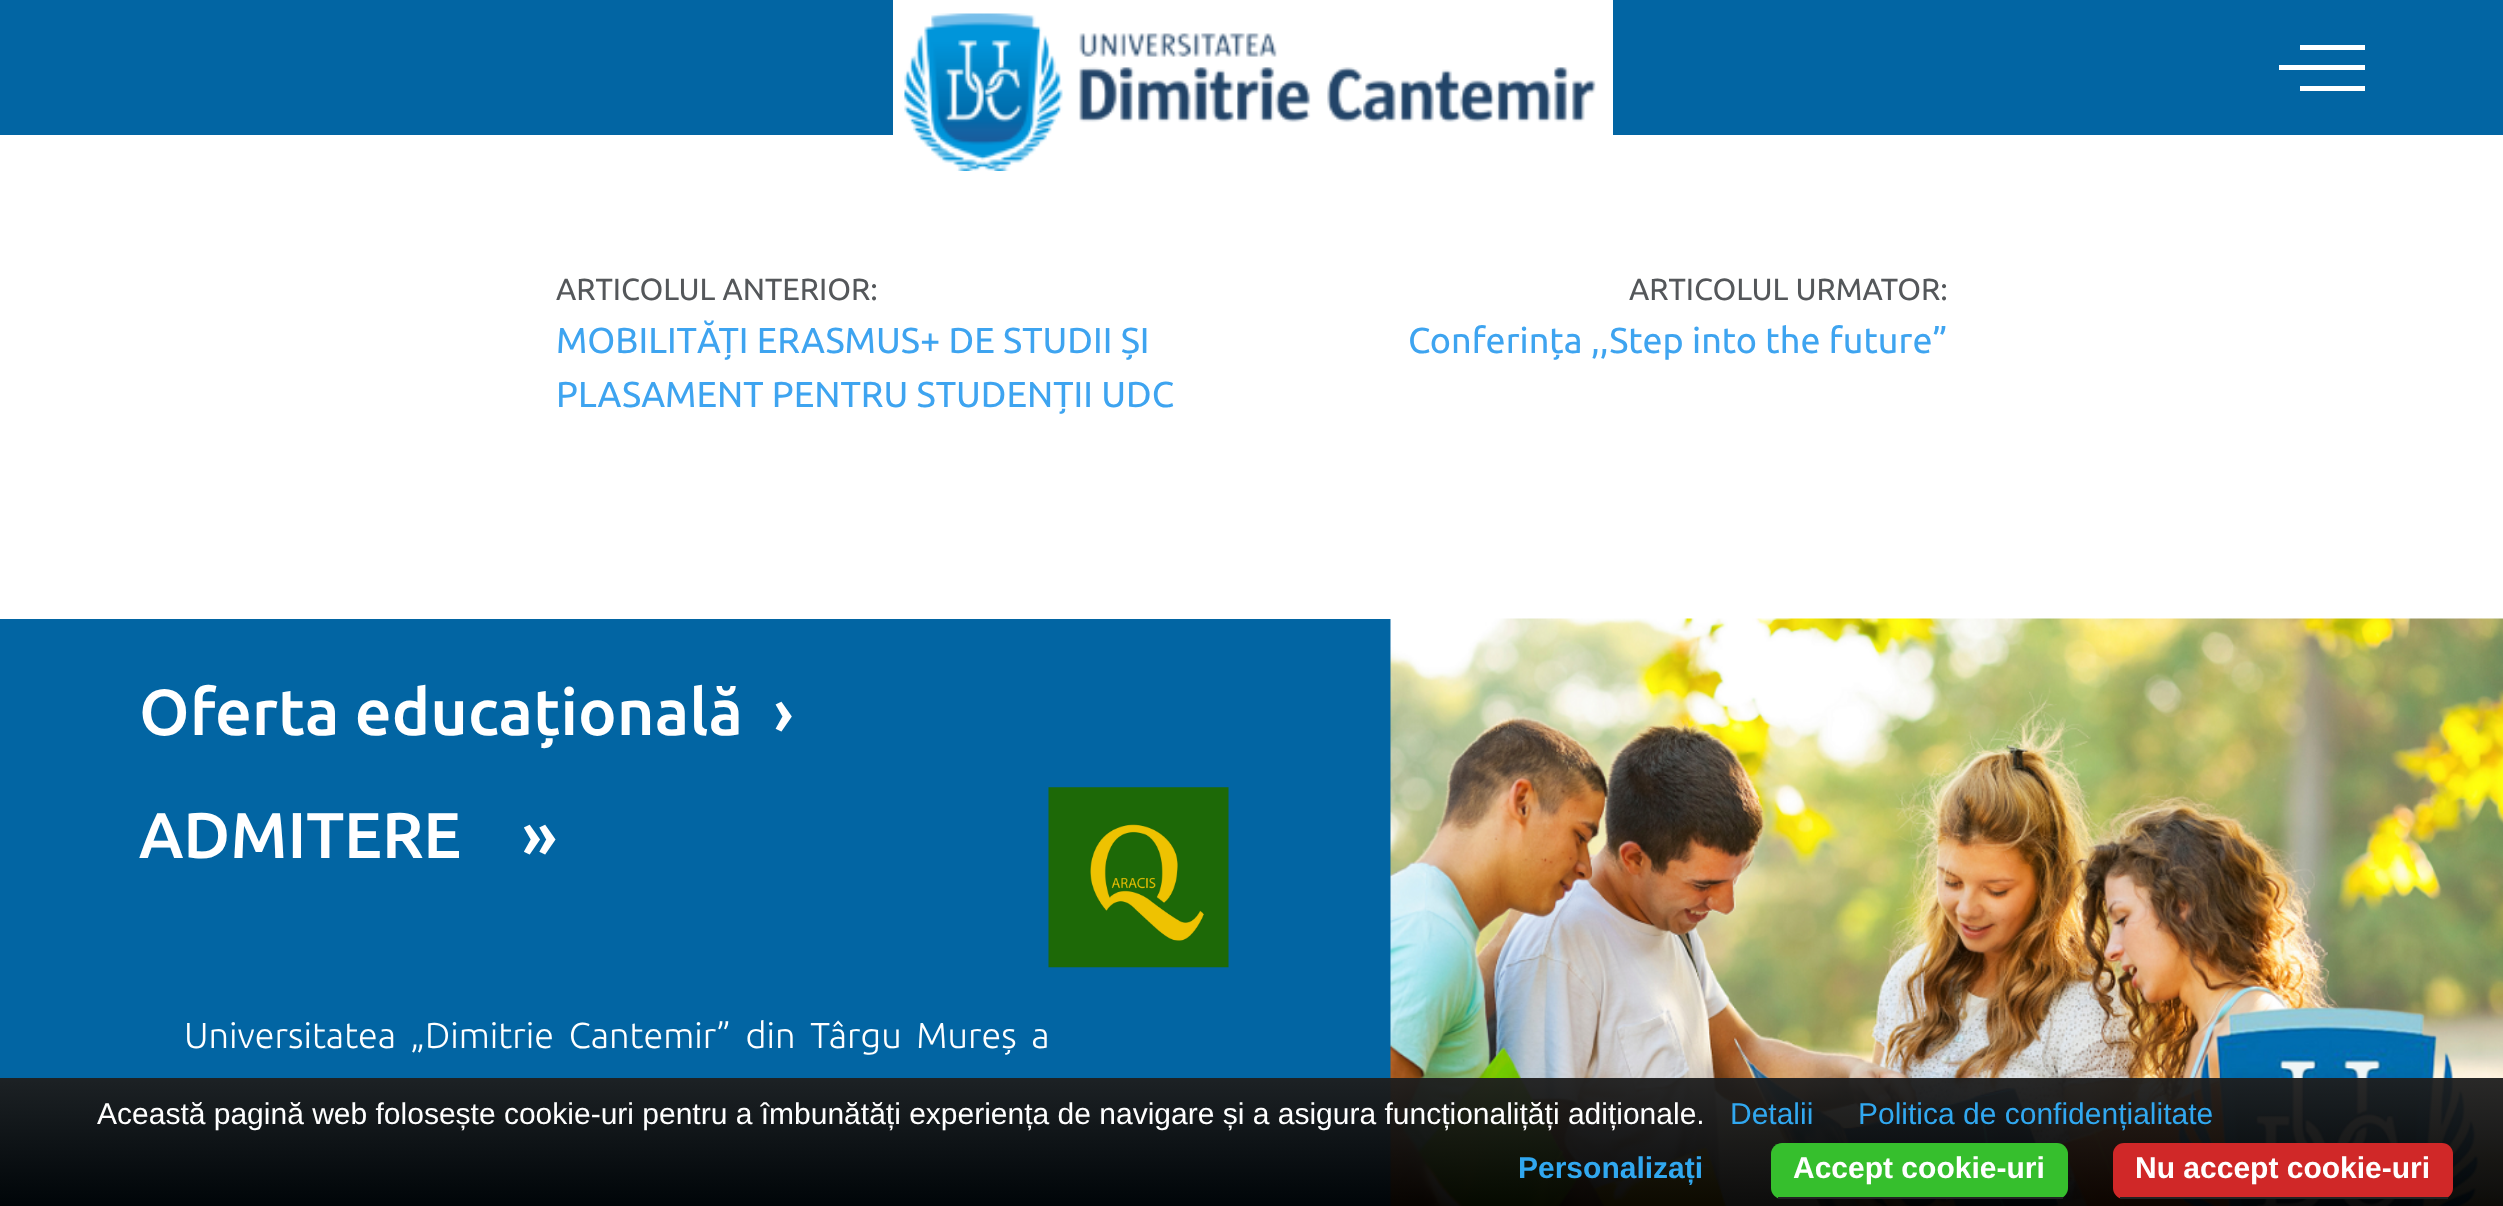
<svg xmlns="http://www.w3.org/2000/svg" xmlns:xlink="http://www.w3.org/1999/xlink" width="2503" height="1206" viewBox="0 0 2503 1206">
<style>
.cls-1{font:30.6px Ubuntu;fill:#54575a}
.cls-2{font:36px Ubuntu;fill:#3ea4f0}
.cls-3{font:500 64.75px Ubuntu;fill:#ffffff}
.cls-4{font:300 36px Ubuntu;fill:#ffffff}
.cls-5{font:30px Liberation Sans;fill:#ffffff}
.cls-6{font:30px Liberation Sans;fill:#31a8f0}
.cls-7{font:bold 30px Liberation Sans;fill:#31a8f0}
.cls-8{font:bold 30px Liberation Sans;fill:#ffffff}
</style>
<defs>
<linearGradient id="g1" gradientUnits="userSpaceOnUse" x1="1252" y1="1078" x2="1252" y2="1206"><stop offset="0" stop-color="#1e1e1e" stop-opacity="0.95"/><stop offset="1" stop-color="#000000" stop-opacity="0.95"/></linearGradient>
</defs>
<rect width="100%" height="100%" fill="#ffffff"/>
<rect fill="#0265a3" x="0" y="0" width="2503" height="135"/>
<rect fill="#ffffff" x="893" y="0" width="720" height="135"/>
<image xlink:href="image0.png" x="904" y="13" width="692" height="158"/>
<rect fill="#ffffff" x="2300" y="45" width="65" height="5"/>
<rect fill="#ffffff" x="2279" y="65" width="86" height="5"/>
<rect fill="#ffffff" x="2300" y="86" width="65" height="5"/>
<rect fill="#0265a3" x="0" y="619" width="1391" height="587"/>
<image xlink:href="image1.png" x="1390" y="618" width="1113" height="588"/>
<image xlink:href="image2.png" x="1048" y="787" width="181" height="181"/>
<rect fill="url(#g1)" x="0" y="1078" width="2503" height="128"/>
<rect fill="#36bf2d" x="1771" y="1143" width="297" height="56" rx="11"/>
<rect fill="#222222" x="1778" y="1197" width="285" height="2"/>
<rect fill="#d02828" x="2113" y="1143" width="340" height="56" rx="11"/>
<rect fill="#222222" x="2120" y="1197" width="328" height="2"/>
<text class="cls-1" x="556" y="300">ARTICOLUL ANTERIOR:</text>
<text class="cls-2"><tspan x="556" y="353">MOBILITĂȚI ERASMUS+ DE STUDII ȘI</tspan><tspan x="556" y="407">PLASAMENT PENTRU STUDENȚII UDC</tspan></text>
<text class="cls-1" x="1629" y="300">ARTICOLUL URMATOR:</text>
<text class="cls-2" x="1408" y="353">Conferința ,,Step into the future”</text>
<text class="cls-3" xml:space="preserve"><tspan x="139" y="735">Oferta educațională  ›</tspan><tspan x="139" y="858">ADMITERE    »</tspan></text>
<text class="cls-4" x="184" y="1048" word-spacing="6.5">Universitatea „Dimitrie Cantemir” din Târgu Mureș a</text>
<text class="cls-5" x="97" y="1124">Această pagină web folosește cookie-uri pentru a îmbunătăți experiența de navigare și a asigura funcționalițăți adiționale.</text>
<text class="cls-6" x="1730" y="1124">Detalii</text>
<text class="cls-6" x="1858" y="1124">Politica de confidențialitate</text>
<text class="cls-7" x="1518" y="1178">Personalizați</text>
<text class="cls-8" x="1793" y="1178">Accept cookie-uri</text>
<text class="cls-8" x="2135" y="1178">Nu accept cookie-uri</text>
</svg>
